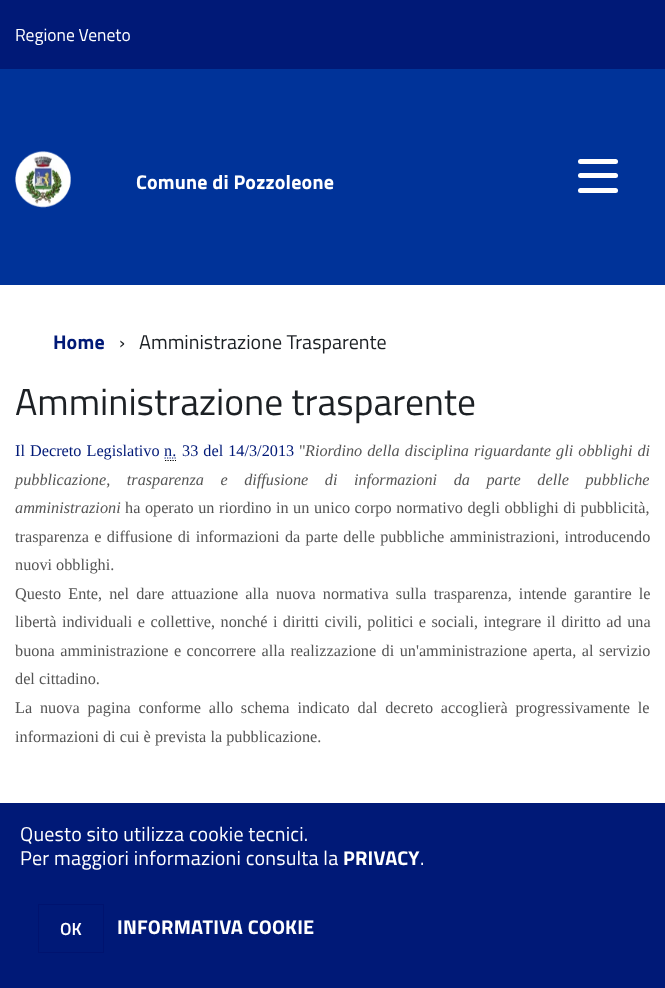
<svg xmlns="http://www.w3.org/2000/svg" xmlns:xlink="http://www.w3.org/1999/xlink" width="665" height="988" viewBox="0 0 665 988">
<style>
.cls-1{font:17.5px Titillium Web;fill:#ffffff}
.cls-2{font:bold 20px Titillium Web;letter-spacing:0.2px;fill:#ffffff}
.cls-3{font:bold 20px Titillium Web;letter-spacing:0.2px;fill:#001977}
.cls-4{font:20px Titillium Web;fill:#1c2024}
.cls-5{font:37.5px Titillium Web;fill:#1c2024}
.cls-6{font:16.25px Liberation Serif;fill:#001977}
.cls-7{font:16.25px Liberation Serif;fill:#555555}
.cls-8{font:italic 16.25px Liberation Serif;fill:#555555}
.cls-9{font:20px Titillium Web;letter-spacing:0.2px;fill:#ffffff}
.cls-10{font:600 17.5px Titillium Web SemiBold;fill:#ffffff}
</style>
<rect width="100%" height="100%" fill="#ffffff"/>
<rect fill="#001977" x="0" y="0" width="665" height="69"/>
<rect fill="#003399" x="0" y="69" width="665" height="216"/>
<image xlink:href="image0.png" x="15" y="151" width="56" height="57"/>
<rect fill="#ffffff" x="578" y="173" width="40" height="5" rx="2.5"/>
<rect fill="#ffffff" x="578" y="159" width="40" height="5" rx="2.5"/>
<rect fill="#ffffff" x="578" y="188" width="40" height="5" rx="2.5"/>
<path fill="none" stroke="#000000" stroke-width="1.2" stroke-dasharray="1.25 1.25" d="M165 460.5H176"/>
<path fill="none" stroke="#001977" stroke-width="1.2" stroke-dasharray="1.25 1.25" d="M164.5 458H176.5"/>
<rect fill="#001977" x="0" y="803" width="665" height="185"/>
<rect fill="none" stroke="#00136f" x="38.5" y="904.5" width="65" height="48"/>
<text class="cls-1" x="15" y="41">Regione Veneto</text>
<text class="cls-2" x="136" y="189">Comune di Pozzoleone</text>
<text class="cls-3" x="53" y="349">Home</text>
<text class="cls-4" x="119" y="349">›</text>
<text class="cls-4" x="139" y="349">Amministrazione Trasparente</text>
<text class="cls-5" x="15" y="415">Amministrazione trasparente</text>
<text class="cls-6" x="15" y="456" word-spacing="1">Il Decreto Legislativo</text>
<text class="cls-6" x="182" y="456" word-spacing="1">33 del 14/3/2013</text>
<text class="cls-7" x="299" y="456">"</text>
<text class="cls-8" x="305" y="456" word-spacing="1">Riordino della disciplina riguardante gli obblighi di</text>
<text class="cls-6" x="164" y="456">n.</text>
<text class="cls-8"><tspan x="15" y="485" word-spacing="12.5">pubblicazione, trasparenza e diffusione di informazioni da parte delle pubbliche</tspan><tspan x="15" y="513">amministrazioni</tspan></text>
<text class="cls-7" x="125" y="513" word-spacing="0.5">ha operato un riordino in un unico corpo normativo degli obblighi di pubblicità,</text>
<text class="cls-7"><tspan x="15" y="542" word-spacing="1.25">trasparenza e diffusione di informazioni da parte delle pubbliche amministrazioni, introducendo</tspan><tspan x="15" y="570">nuovi obblighi.</tspan><tspan x="15" y="599" word-spacing="3.1">Questo Ente, nel dare attuazione alla nuova normativa sulla trasparenza, intende garantire le</tspan><tspan x="15" y="627" word-spacing="1.4">libertà individuali e collettive, nonché i diritti civili, politici e sociali, integrare il diritto ad una</tspan><tspan x="15" y="656" word-spacing="1.4">buona amministrazione e concorrere alla realizzazione di un'amministrazione aperta, al servizio</tspan><tspan x="15" y="684">del cittadino.</tspan><tspan x="15" y="713" word-spacing="3.75">La nuova pagina conforme allo schema indicato dal decreto accoglierà progressivamente le</tspan><tspan x="15" y="742">informazioni di cui è prevista la pubblicazione.</tspan></text>
<text class="cls-9"><tspan x="20" y="841">Questo sito utilizza cookie tecnici.</tspan><tspan x="20" y="865">Per maggiori informazioni consulta la</tspan></text>
<text class="cls-2" x="343" y="865">PRIVACY</text>
<text class="cls-9" x="420" y="865">.</text>
<text class="cls-10" x="60" y="935">OK</text>
<text class="cls-2" x="117" y="934">INFORMATIVA COOKIE</text>
</svg>
